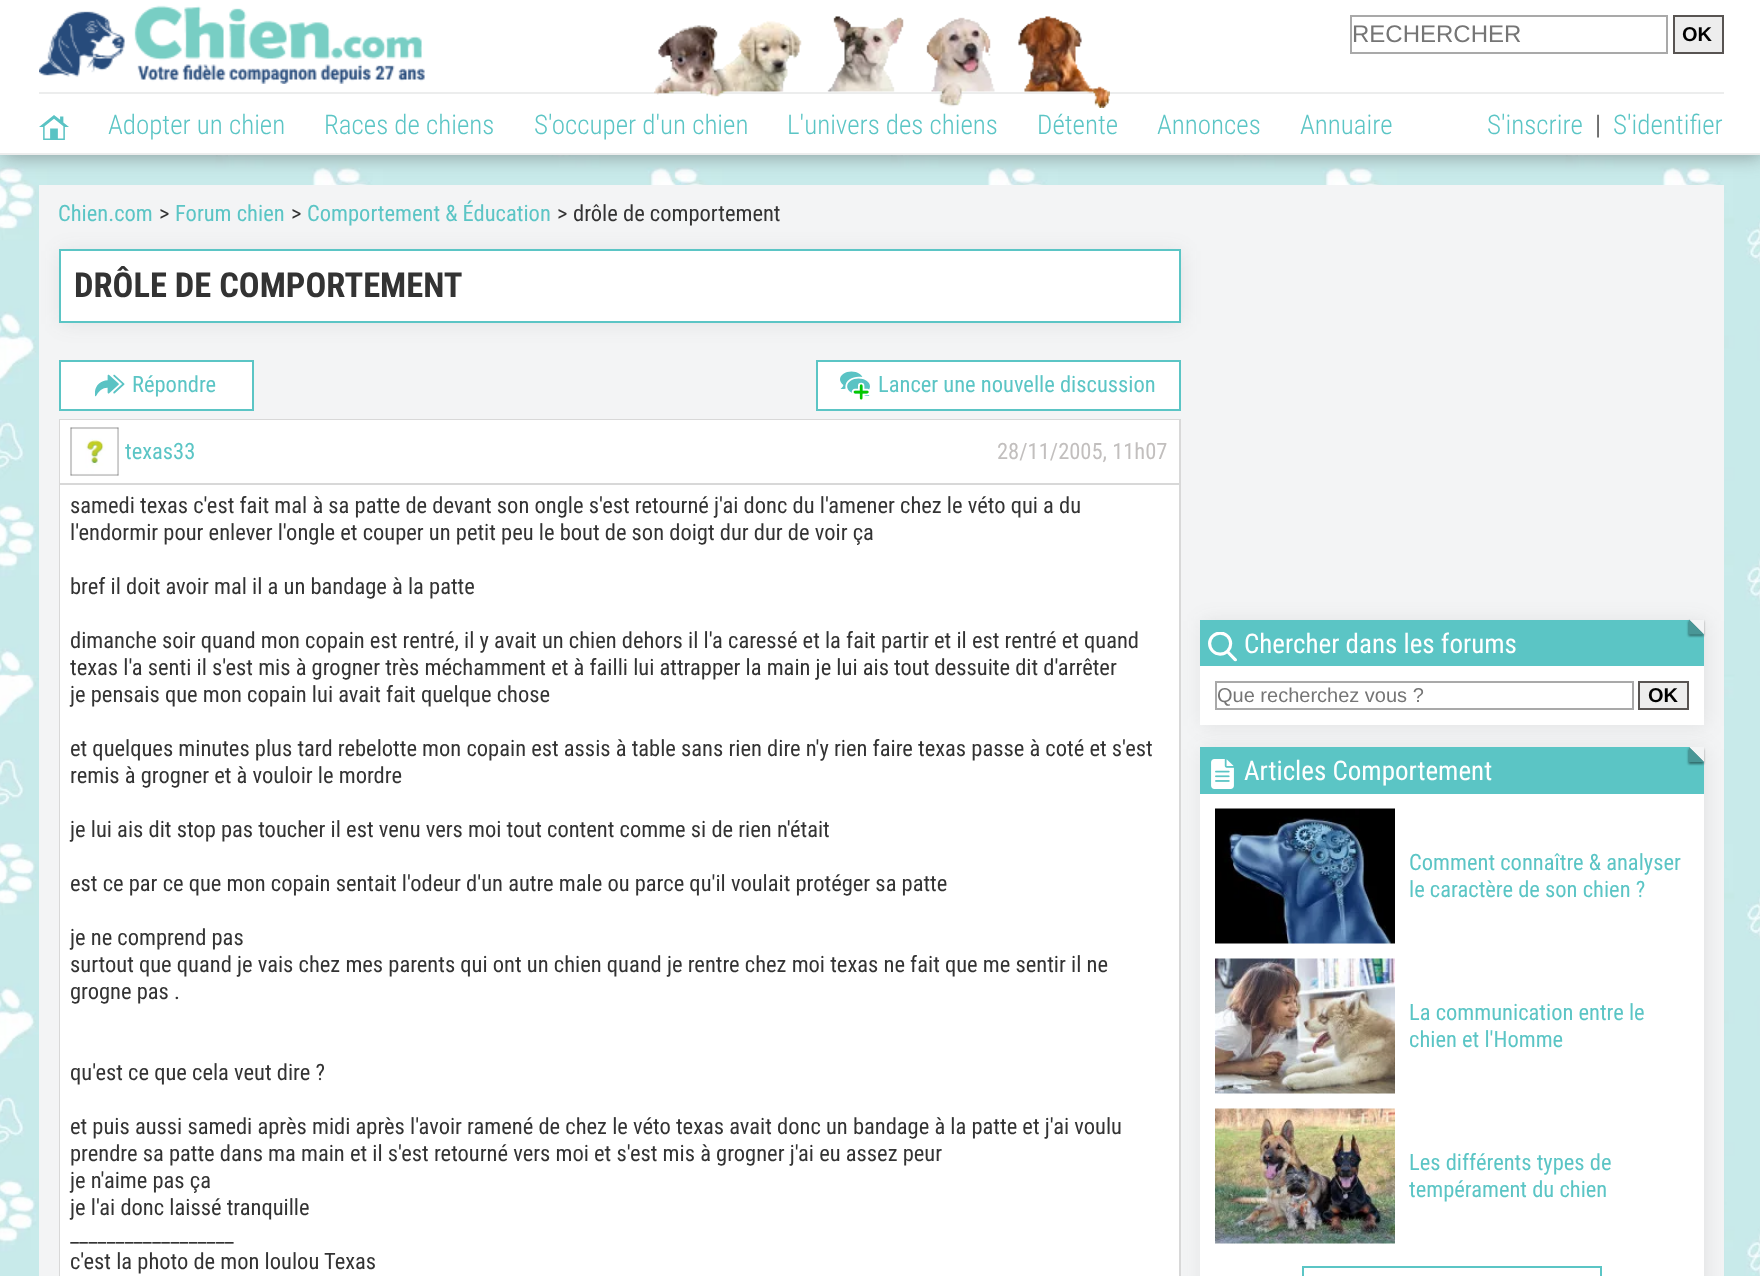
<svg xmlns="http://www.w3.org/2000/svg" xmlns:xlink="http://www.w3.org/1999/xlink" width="1760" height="1276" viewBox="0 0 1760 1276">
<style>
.cls-1{font:24px Liberation Sans;fill:#757575}
.cls-2{font:bold 20px Liberation Sans;fill:#000000}
.cls-3{font:300 27px Roboto;fill:#5bc5c5}
.cls-4{font:300 27px Roboto;fill:#333333}
.cls-5{font:22.5px Roboto Condensed;fill:#5bc5c5}
.cls-6{font:22.5px Roboto Condensed;fill:#333333}
.cls-7{font:bold 34.5px Roboto;fill:#333333}
.cls-8{font:22.5px Roboto Condensed;fill:#c2bfbe}
.cls-9{font:27px Roboto Condensed;fill:#ffffff}
.cls-10{font:20px Liberation Sans;fill:#757575}
</style>
<rect width="100%" height="100%" fill="#ffffff"/>
<image xlink:href="image0.png" x="0" y="155" width="1760" height="1121"/>
<rect fill="#484848" fill-opacity="0.5" filter="blur(10px)" x="2" y="2" width="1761" height="154"/>
<rect fill="#ffffff" x="0" y="0" width="1760" height="153"/>
<rect fill="#eceded" x="0" y="153" width="1760" height="2"/>
<image xlink:href="image1.png" x="39" y="5" width="386" height="79"/>
<rect fill="#eceded" x="39" y="92" width="1685" height="2"/>
<image xlink:href="image2.png" x="654" y="16" width="456" height="92"/>
<rect fill="none" stroke="#a9a9a9" stroke-width="2" x="1351" y="16" width="316" height="37"/>
<rect fill="#ededed" stroke="#585452" stroke-width="2" x="1674" y="16" width="49" height="37"/>
<image xlink:href="image3.png" x="39" y="115" width="30" height="25"/>
<rect fill="#f3f4f5" x="39" y="185" width="1685" height="1091"/>
<rect fill="#484848" fill-opacity="0.1" filter="blur(10px)" x="60" y="251" width="1122" height="73"/>
<rect fill="#ffffff" stroke="#5bc5c5" stroke-width="2" x="60" y="250" width="1120" height="72"/>
<rect fill="#ffffff" stroke="#5bc5c5" stroke-width="2" x="60" y="361" width="193" height="49"/>
<image xlink:href="image4.png" x="95" y="374" width="30" height="23"/>
<rect fill="#ffffff" stroke="#5bc5c5" stroke-width="2" x="817" y="361" width="363" height="49"/>
<image xlink:href="image5.png" x="840" y="371" width="30" height="29"/>
<rect fill="#d8d8d8" x="59" y="419" width="1122" height="857"/>
<rect fill="#ffffff" x="60" y="420" width="1119" height="63"/>
<image xlink:href="image6.png" x="70" y="427" width="49" height="49"/>
<rect fill="#ffffff" x="60" y="485" width="1119" height="791"/>
<rect fill="#484848" fill-opacity="0.1" filter="blur(10px)" x="1202" y="621" width="504" height="105"/>
<rect fill="#ffffff" x="1200" y="666" width="504" height="59"/>
<rect fill="#5bc5c5" x="1200" y="620" width="504" height="46"/>
<rect fill="#000000" fill-opacity="0.2" filter="blur(1px)" x="1688" y="621" width="15" height="15"/>
<rect fill="#000000" fill-opacity="0.3" filter="blur(1px)" x="1689" y="621" width="15" height="15"/>
<path fill="#f3f4f5" d="M1704 619.5V634.5L1689 619.5Z"/>
<path fill="#499696" d="M1704 634.5H1689V619.5Z"/>
<image xlink:href="image7.png" x="1208" y="632" width="29" height="30"/>
<rect fill="none" stroke="#a9a9a9" stroke-width="2" x="1216" y="682" width="417" height="27"/>
<rect fill="#ededed" stroke="#585452" stroke-width="2" x="1639" y="682" width="49" height="27"/>
<rect fill="#484848" fill-opacity="0.1" filter="blur(10px)" x="1202" y="749" width="504" height="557"/>
<rect fill="#ffffff" x="1200" y="794" width="504" height="482"/>
<rect fill="#5bc5c5" x="1200" y="747" width="504" height="47"/>
<rect fill="#000000" fill-opacity="0.2" filter="blur(1px)" x="1688" y="749" width="15" height="15"/>
<rect fill="#000000" fill-opacity="0.3" filter="blur(1px)" x="1689" y="749" width="15" height="15"/>
<path fill="#f3f4f5" d="M1704 747V762L1689 747Z"/>
<path fill="#499696" d="M1704 762H1689V747Z"/>
<image xlink:href="image8.png" x="1211" y="759" width="23" height="30"/>
<image xlink:href="image9.png" x="1215" y="808" width="180" height="136"/>
<image xlink:href="image10.png" x="1215" y="958" width="180" height="136"/>
<image xlink:href="image11.png" x="1215" y="1108" width="180" height="136"/>
<rect fill="none" stroke="#5bc5c5" stroke-width="2" x="1303" y="1267" width="298" height="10"/>
<text class="cls-1" x="1352" y="42">RECHERCHER</text>
<text class="cls-2" x="1682" y="41">OK</text>
<text class="cls-3" x="108" y="134">Adopter un chien</text>
<text class="cls-3" x="324" y="134">Races de chiens</text>
<text class="cls-3" x="534" y="134">S'occuper d'un chien</text>
<text class="cls-3" x="787" y="134">L'univers des chiens</text>
<text class="cls-3" x="1037" y="134">Détente</text>
<text class="cls-3" x="1157" y="134">Annonces</text>
<text class="cls-3" x="1300" y="134">Annuaire</text>
<text class="cls-3" x="1487" y="134">S'inscrire</text>
<text class="cls-4" x="1595" y="134">|</text>
<text class="cls-3" x="1613" y="134">S'identifier</text>
<text class="cls-5" x="58" y="221">Chien.com</text>
<text class="cls-6" x="159" y="221">&gt;</text>
<text class="cls-5" x="175" y="221">Forum chien</text>
<text class="cls-6" x="291" y="221">&gt;</text>
<text class="cls-5" x="307" y="221">Comportement &amp; Éducation</text>
<text class="cls-6" x="557" y="221">&gt;</text>
<text class="cls-6" x="573" y="221">drôle de comportement</text>
<text class="cls-7" x="74" y="297">DRÔLE DE COMPORTEMENT</text>
<text class="cls-5" x="132" y="392">Répondre</text>
<text class="cls-5" x="878" y="392">Lancer une nouvelle discussion</text>
<text class="cls-5" x="125" y="459">texas33</text>
<text class="cls-8" x="997" y="459">28/11/2005, 11h07</text>
<text class="cls-6"><tspan x="70" y="513">samedi texas c'est fait mal à sa patte de devant son ongle s'est retourné j'ai donc du l'amener chez le véto qui a du</tspan><tspan x="70" y="540">l'endormir pour enlever l'ongle et couper un petit peu le bout de son doigt dur dur de voir ça</tspan></text>
<text class="cls-6" x="70" y="594">bref il doit avoir mal il a un bandage à la patte</text>
<text class="cls-6"><tspan x="70" y="648">dimanche soir quand mon copain est rentré, il y avait un chien dehors il l'a caressé et la fait partir et il est rentré et quand</tspan><tspan x="70" y="675">texas l'a senti il s'est mis à grogner très méchamment et à failli lui attrapper la main je lui ais tout dessuite dit d'arrêter</tspan><tspan x="70" y="702">je pensais que mon copain lui avait fait quelque chose</tspan></text>
<text class="cls-6"><tspan x="70" y="756">et quelques minutes plus tard rebelotte mon copain est assis à table sans rien dire n'y rien faire texas passe à coté et s'est</tspan><tspan x="70" y="783">remis à grogner et à vouloir le mordre</tspan></text>
<text class="cls-6" x="70" y="837">je lui ais dit stop pas toucher il est venu vers moi tout content comme si de rien n'était</text>
<text class="cls-6" x="70" y="891">est ce par ce que mon copain sentait l'odeur d'un autre male ou parce qu'il voulait protéger sa patte</text>
<text class="cls-6"><tspan x="70" y="945">je ne comprend pas</tspan><tspan x="70" y="972">surtout que quand je vais chez mes parents qui ont un chien quand je rentre chez moi texas ne fait que me sentir il ne</tspan><tspan x="70" y="999">grogne pas .</tspan></text>
<text class="cls-6" x="70" y="1080">qu'est ce que cela veut dire ?</text>
<text class="cls-6"><tspan x="70" y="1134">et puis aussi samedi après midi après l'avoir ramené de chez le véto texas avait donc un bandage à la patte et j'ai voulu</tspan><tspan x="70" y="1161">prendre sa patte dans ma main et il s'est retourné vers moi et s'est mis à grogner j'ai eu assez peur</tspan><tspan x="70" y="1188">je n'aime pas ça</tspan><tspan x="70" y="1215">je l'ai donc laissé tranquille</tspan><tspan x="70" y="1242">__________________</tspan><tspan x="70" y="1269">c'est la photo de mon loulou Texas</tspan></text>
<text class="cls-9" x="1244" y="653">Chercher dans les forums</text>
<text class="cls-10" x="1217" y="702">Que recherchez vous ?</text>
<text class="cls-2" x="1648" y="702">OK</text>
<text class="cls-9" x="1244" y="780">Articles Comportement</text>
<text class="cls-5"><tspan x="1409" y="870">Comment connaître &amp; analyser</tspan><tspan x="1409" y="897">le caractère de son chien ?</tspan></text>
<text class="cls-5"><tspan x="1409" y="1020">La communication entre le</tspan><tspan x="1409" y="1047">chien et l'Homme</tspan></text>
<text class="cls-5"><tspan x="1409" y="1170">Les différents types de</tspan><tspan x="1409" y="1197">tempérament du chien</tspan></text>
</svg>
